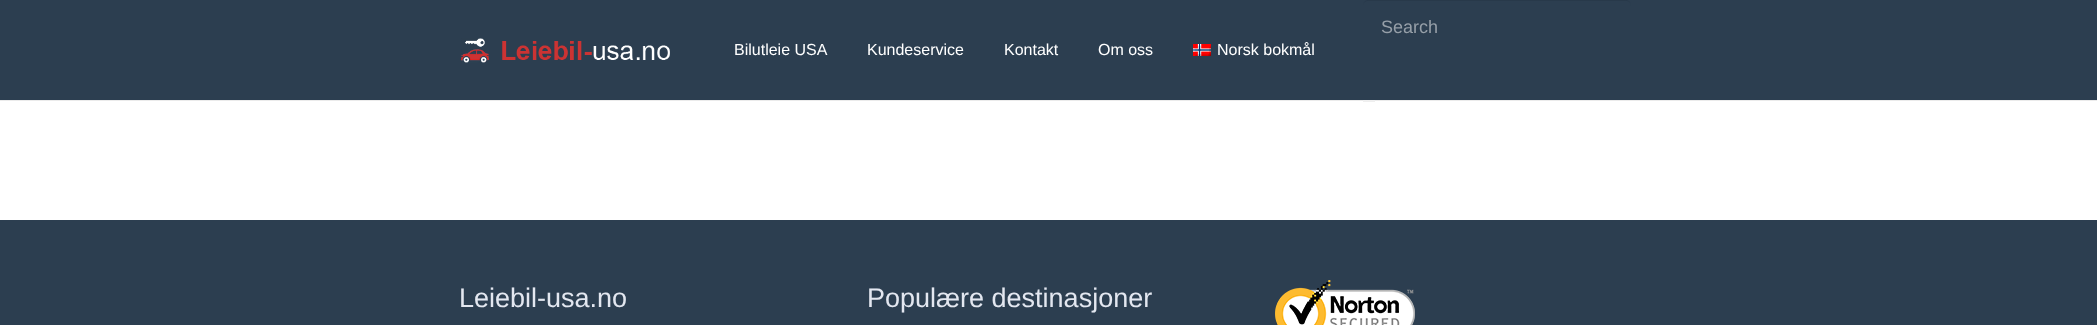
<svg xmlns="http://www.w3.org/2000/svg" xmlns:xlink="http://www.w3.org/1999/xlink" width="2097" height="325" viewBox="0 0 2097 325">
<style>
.cls-1{font:18px Liberation Sans;fill:#969fa8}
.cls-2{font:16px Liberation Sans;fill:#ffffff}
.cls-3{font:27px Liberation Sans;fill:#e3e7f0}
</style>
<rect width="100%" height="100%" fill="#ffffff"/>
<rect fill="#ebebeb" x="0" y="100" width="2097" height="1"/>
<rect fill="#2c3e50" x="0" y="0" width="2097" height="100"/>
<image xlink:href="image0.png" x="461" y="38" width="209" height="25"/>
<path fill="#28394a" d="M1368 1H1626C1629 1 1631 3 1631 6C1631 3 1629 0 1626 0H1368C1365 0 1363 3 1363 6C1363 3 1365 1 1368 1Z"/>
<rect fill="#efefef" x="1363" y="100" width="12" height="2"/>
<image xlink:href="image1.png" x="1193" y="44" width="18" height="12"/>
<rect fill="#2c3e50" x="0" y="220" width="2097" height="105"/>
<image xlink:href="image2.png" x="1275" y="280" width="140" height="45"/>
<text class="cls-1" x="1381" y="33">Search</text>
<text class="cls-2" x="734" y="55">Bilutleie USA</text>
<text class="cls-2" x="867" y="55">Kundeservice</text>
<text class="cls-2" x="1004" y="55">Kontakt</text>
<text class="cls-2" x="1098" y="55">Om oss</text>
<text class="cls-2" x="1217" y="55">Norsk bokmål</text>
<text class="cls-3" x="459" y="307">Leiebil-usa.no</text>
<text class="cls-3" x="867" y="307">Populære destinasjoner</text>
</svg>
